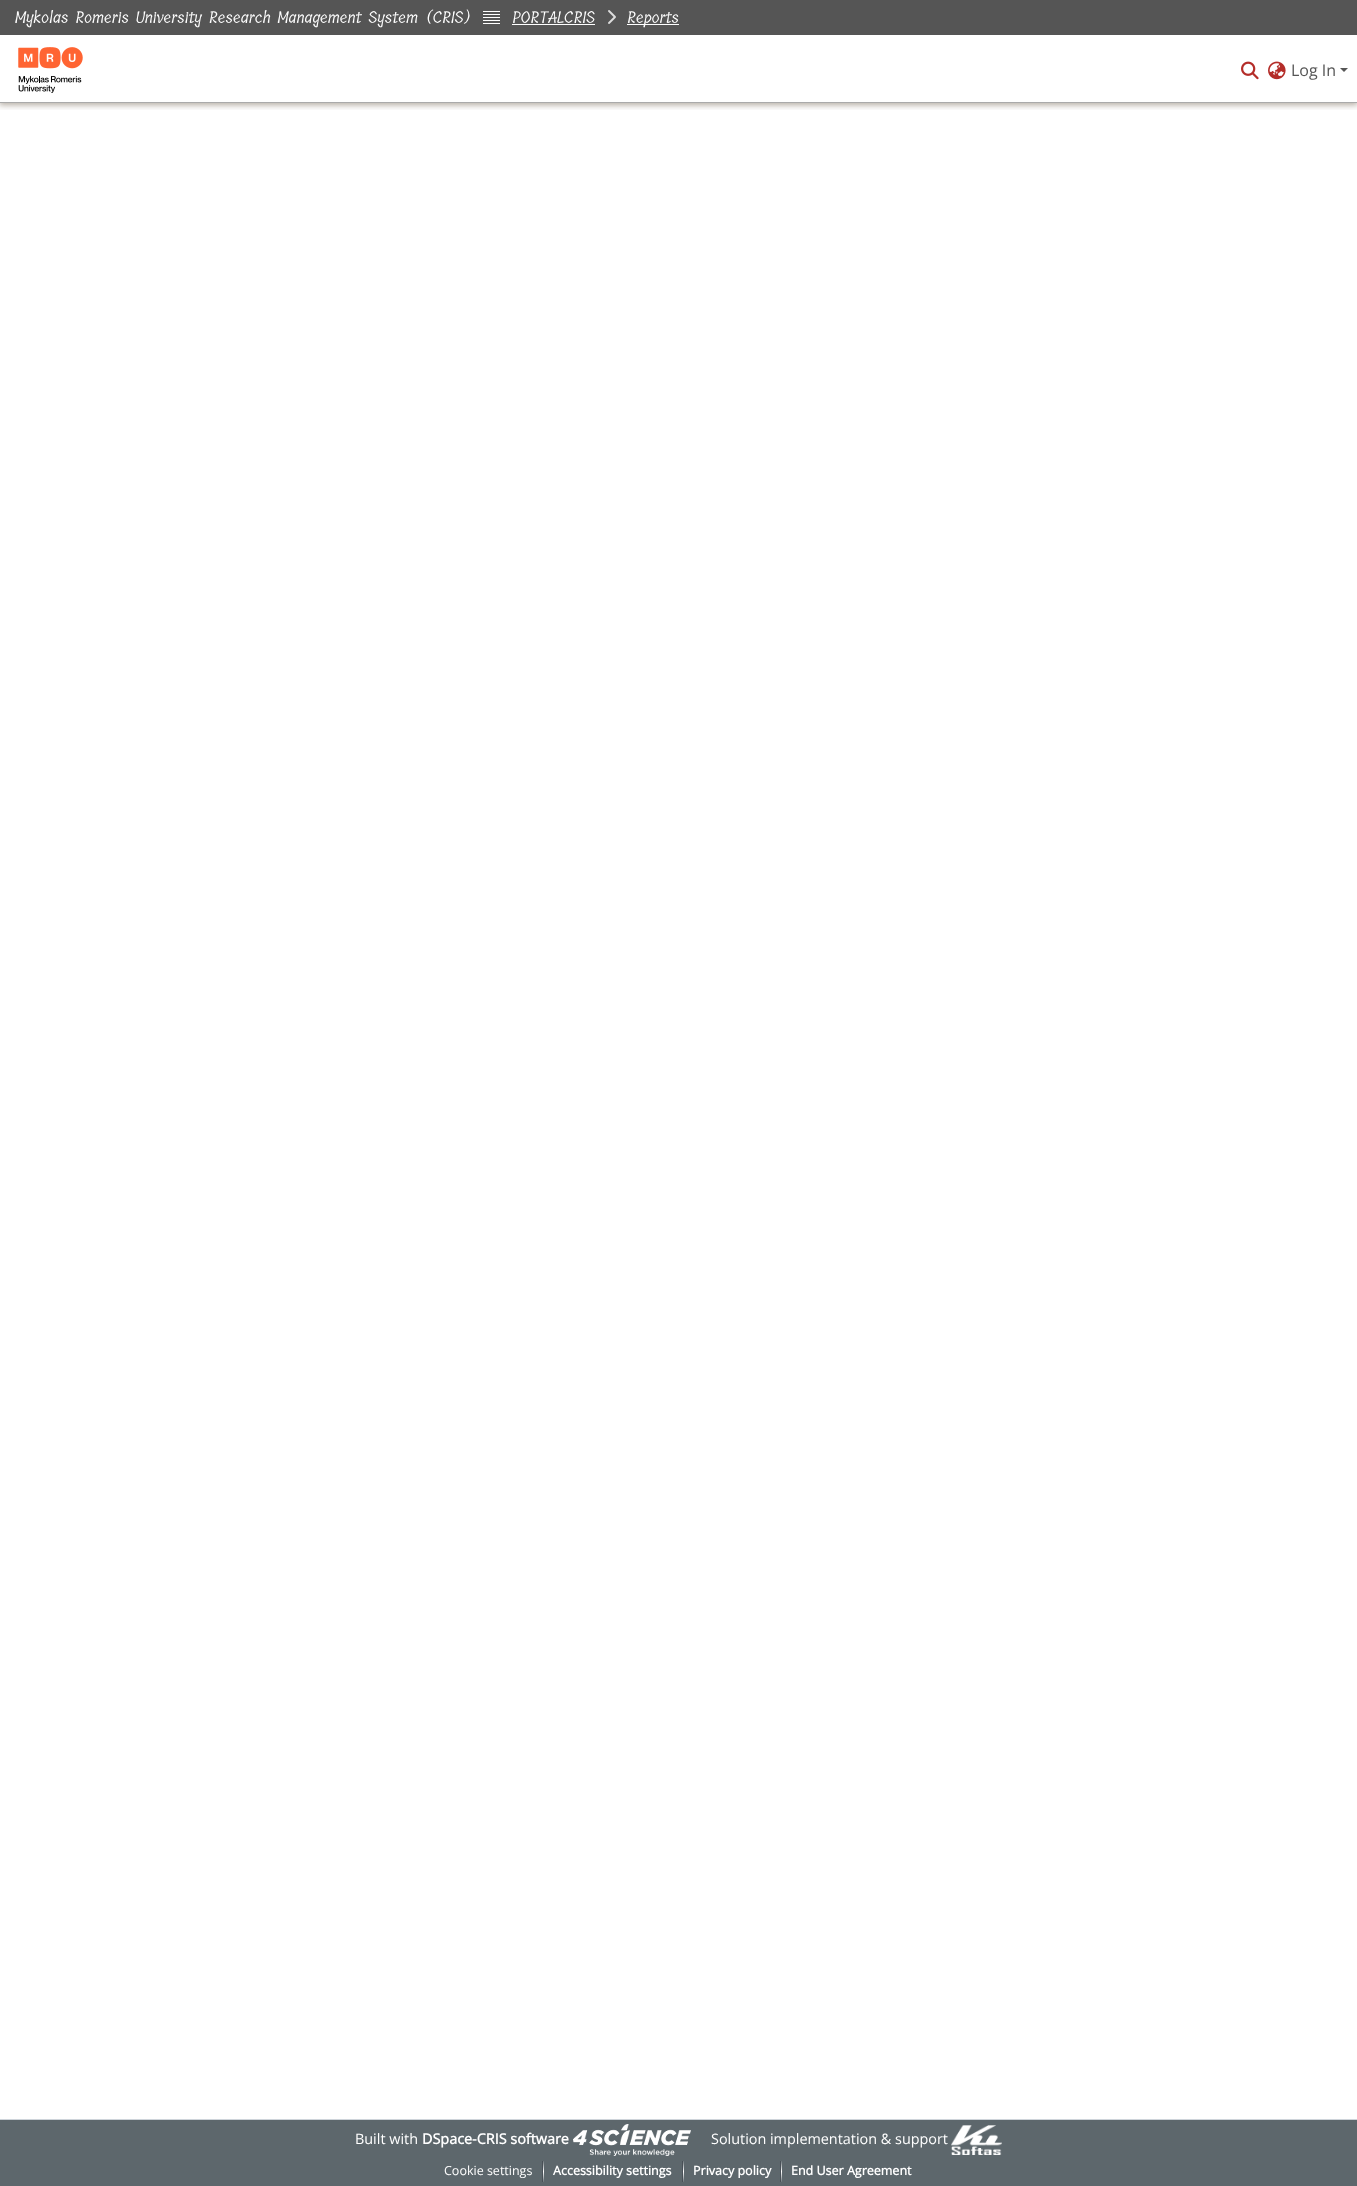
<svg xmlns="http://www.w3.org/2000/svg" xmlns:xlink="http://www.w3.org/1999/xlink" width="1357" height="2186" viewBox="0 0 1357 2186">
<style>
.cls-1{font:16px Tillana;fill:#ffffff}
.cls-2{font:16px Open Sans;fill:#555555}
.cls-3{font:14.4px Open Sans;fill:#ffffff}
.cls-4{font:bold 14.4px Open Sans;fill:#ffffff}
.cls-5{font:12.5px Open Sans;fill:#ffffff}
.cls-6{font:bold 12.5px Open Sans;fill:#ffffff}
</style>
<defs>
<clipPath id="clip1"><rect x="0" y="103" width="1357" height="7"/></clipPath>
</defs>
<rect width="100%" height="100%" fill="#ffffff"/>
<g clip-path="url(#clip1)">
<rect fill="#685744" fill-opacity="0.5" filter="blur(3px)" x="-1" y="0" width="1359" height="105"/>
</g>
<rect fill="#aaaaaa" x="0" y="102" width="1357" height="1"/>
<rect fill="#555555" x="0" y="0" width="1357" height="35"/>
<rect fill="#ffffff" x="483" y="11" width="17" height="1"/>
<rect fill="#ffffff" x="483" y="14" width="17" height="1"/>
<rect fill="#ffffff" x="483" y="17" width="17" height="1"/>
<rect fill="#ffffff" x="483" y="20" width="17" height="1"/>
<rect fill="#ffffff" x="483" y="23" width="17" height="1"/>
<rect fill="#ffffff" x="512" y="24" width="83" height="1"/>
<image xlink:href="image0.png" x="608" y="10" width="8" height="14"/>
<rect fill="#ffffff" x="627" y="24" width="52" height="1"/>
<image xlink:href="image1.png" x="18" y="47" width="65" height="46"/>
<image xlink:href="image2.png" x="1241" y="61" width="18" height="19"/>
<image xlink:href="image3.png" x="1268" y="61" width="18" height="19"/>
<path fill="#555555" d="M1340 68H1348L1344 72Z"/>
<rect fill="#5d676c" x="0" y="2120" width="1357" height="66"/>
<rect fill="#ced4da" x="0" y="2119" width="1357" height="1"/>
<image xlink:href="image4.png" x="573" y="2124" width="118" height="32"/>
<image xlink:href="image5.png" x="951" y="2125" width="51" height="30"/>
<image xlink:href="image6.png" x="543" y="2161" width="1" height="21"/>
<rect fill="#495057" x="542" y="2161" width="1" height="21"/>
<image xlink:href="image7.png" x="683" y="2161" width="1" height="21"/>
<rect fill="#495057" x="682" y="2161" width="1" height="21"/>
<image xlink:href="image6.png" x="781" y="2161" width="1" height="21"/>
<rect fill="#495057" x="780" y="2161" width="1" height="21"/>
<text class="cls-1" x="15" y="23">Mykolas Romeris University Research Management System (CRIS)</text>
<text class="cls-1" x="512" y="23">PORTALCRIS</text>
<text class="cls-1" x="627" y="23">Reports</text>
<text class="cls-2" x="1291" y="76">Log In</text>
<text class="cls-3" x="355" y="2144">Built with</text>
<text class="cls-4" x="422" y="2144">DSpace-CRIS software</text>
<text class="cls-3" x="711" y="2144">Solution implementation &amp; support</text>
<text class="cls-5" x="444" y="2175">Cookie settings</text>
<text class="cls-6" x="553" y="2175">Accessibility settings</text>
<text class="cls-6" x="693" y="2175">Privacy policy</text>
<text class="cls-6" x="791" y="2175">End User Agreement</text>
</svg>
